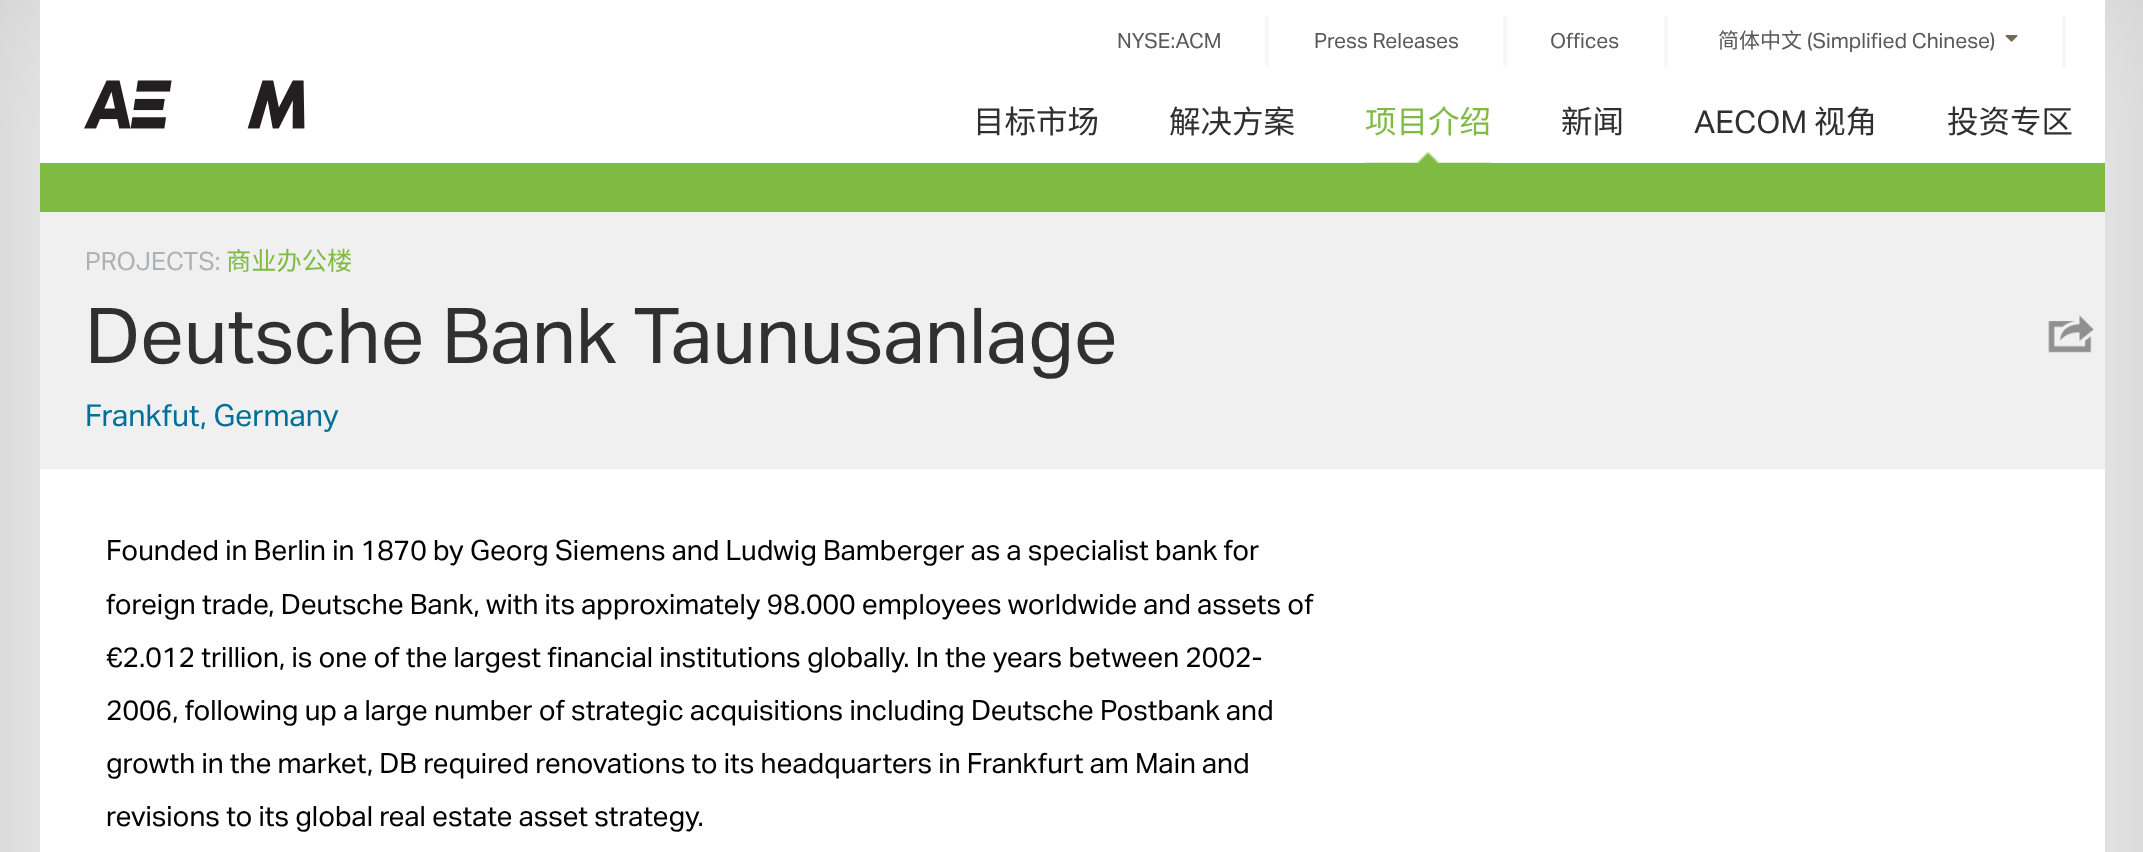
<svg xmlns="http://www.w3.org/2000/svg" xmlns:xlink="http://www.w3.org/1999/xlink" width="2143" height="852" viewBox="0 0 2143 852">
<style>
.cls-1{font:21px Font;fill:#595959}
.cls-2{font:21px Noto Sans CJK SC;fill:#595959}
.cls-3{font:31.5px Noto Sans CJK SC;fill:#303030}
.cls-4{font:31.5px Noto Sans CJK SC;fill:#7fbb42}
.cls-5{font:31.5px Font;fill:#303030}
.cls-6{font:25.25px Font;fill:#aeb1b3}
.cls-7{font:25.25px Noto Sans CJK SC;fill:#7fbb42}
.cls-8{font:77.2px Font;fill:#303030}
.cls-9{font:30.25px Font;fill:#006f9a}
.cls-10{font:27.95px Font;fill:#000000}
</style>
<defs>
<clipPath id="clip1"><path d="M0 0H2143V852H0ZM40 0H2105V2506H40Z" clip-rule="evenodd"/></clipPath>
</defs>
<rect width="100%" height="100%" fill="#cccccc"/>
<rect fill="#ffffff" x="40" y="0" width="2065" height="852"/>
<g clip-path="url(#clip1)">
<rect fill="#ffffff" fill-opacity="0.6" filter="blur(75px)" x="0" y="-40" width="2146" height="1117"/>
</g>
<rect fill="#f7f7f7" x="1265" y="16" width="4" height="51"/>
<rect fill="#f7f7f7" x="1503" y="16" width="4" height="51"/>
<rect fill="#f7f7f7" x="1664" y="16" width="4" height="51"/>
<rect fill="#f7f7f7" x="2062" y="16" width="4" height="51"/>
<image xlink:href="image0.png" x="2005" y="35" width="13" height="7"/>
<image xlink:href="image1.png" x="84" y="80" width="221" height="49"/>
<rect fill="#7fbb42" x="1365" y="151" width="126" height="12"/>
<image xlink:href="image2.png" x="1365" y="79" width="126" height="84"/>
<rect fill="#f0f0f0" x="40" y="212" width="2065" height="257"/>
<rect fill="#7fbb42" x="40" y="163" width="2065" height="49"/>
<image xlink:href="image3.png" x="2048" y="315" width="46" height="38"/>
<text class="cls-1" x="1117" y="48">NYSE:ACM</text>
<text class="cls-1" x="1314" y="48">Press Releases</text>
<text class="cls-1" x="1550" y="48">Offices</text>
<text class="cls-2" x="1718" y="48">简体中文</text>
<text class="cls-1" x="1807" y="48">(Simplified Chinese)</text>
<text class="cls-3" x="973" y="133">目标市场</text>
<text class="cls-3" x="1169" y="133">解决方案</text>
<text class="cls-4" x="1365" y="133">项目介绍</text>
<text class="cls-3" x="1561" y="133">新闻</text>
<text class="cls-5" x="1694" y="133">AECOM</text>
<text class="cls-3" x="1814" y="133">视角</text>
<text class="cls-3" x="1947" y="133">投资专区</text>
<text class="cls-6" x="85" y="270">PROJECTS:</text>
<text class="cls-7" x="226" y="270">商业办公楼</text>
<text class="cls-8" x="85" y="363">Deutsche Bank Taunusanlage</text>
<text class="cls-9" x="85" y="426">Frankfut, Germany</text>
<text class="cls-10"><tspan x="106" y="560">Founded in Berlin in 1870 by Georg Siemens and Ludwig Bamberger as a specialist bank for</tspan><tspan x="106" y="614">foreign trade, Deutsche Bank, with its approximately 98.000 employees worldwide and assets of</tspan><tspan x="106" y="667">€2.012 trillion, is one of the largest financial institutions globally. In the years between 2002-</tspan><tspan x="106" y="720">2006, following up a large number of strategic acquisitions including Deutsche Postbank and</tspan><tspan x="106" y="773">growth in the market, DB required renovations to its headquarters in Frankfurt am Main and</tspan><tspan x="106" y="826">revisions to its global real estate asset strategy.</tspan></text>
</svg>
